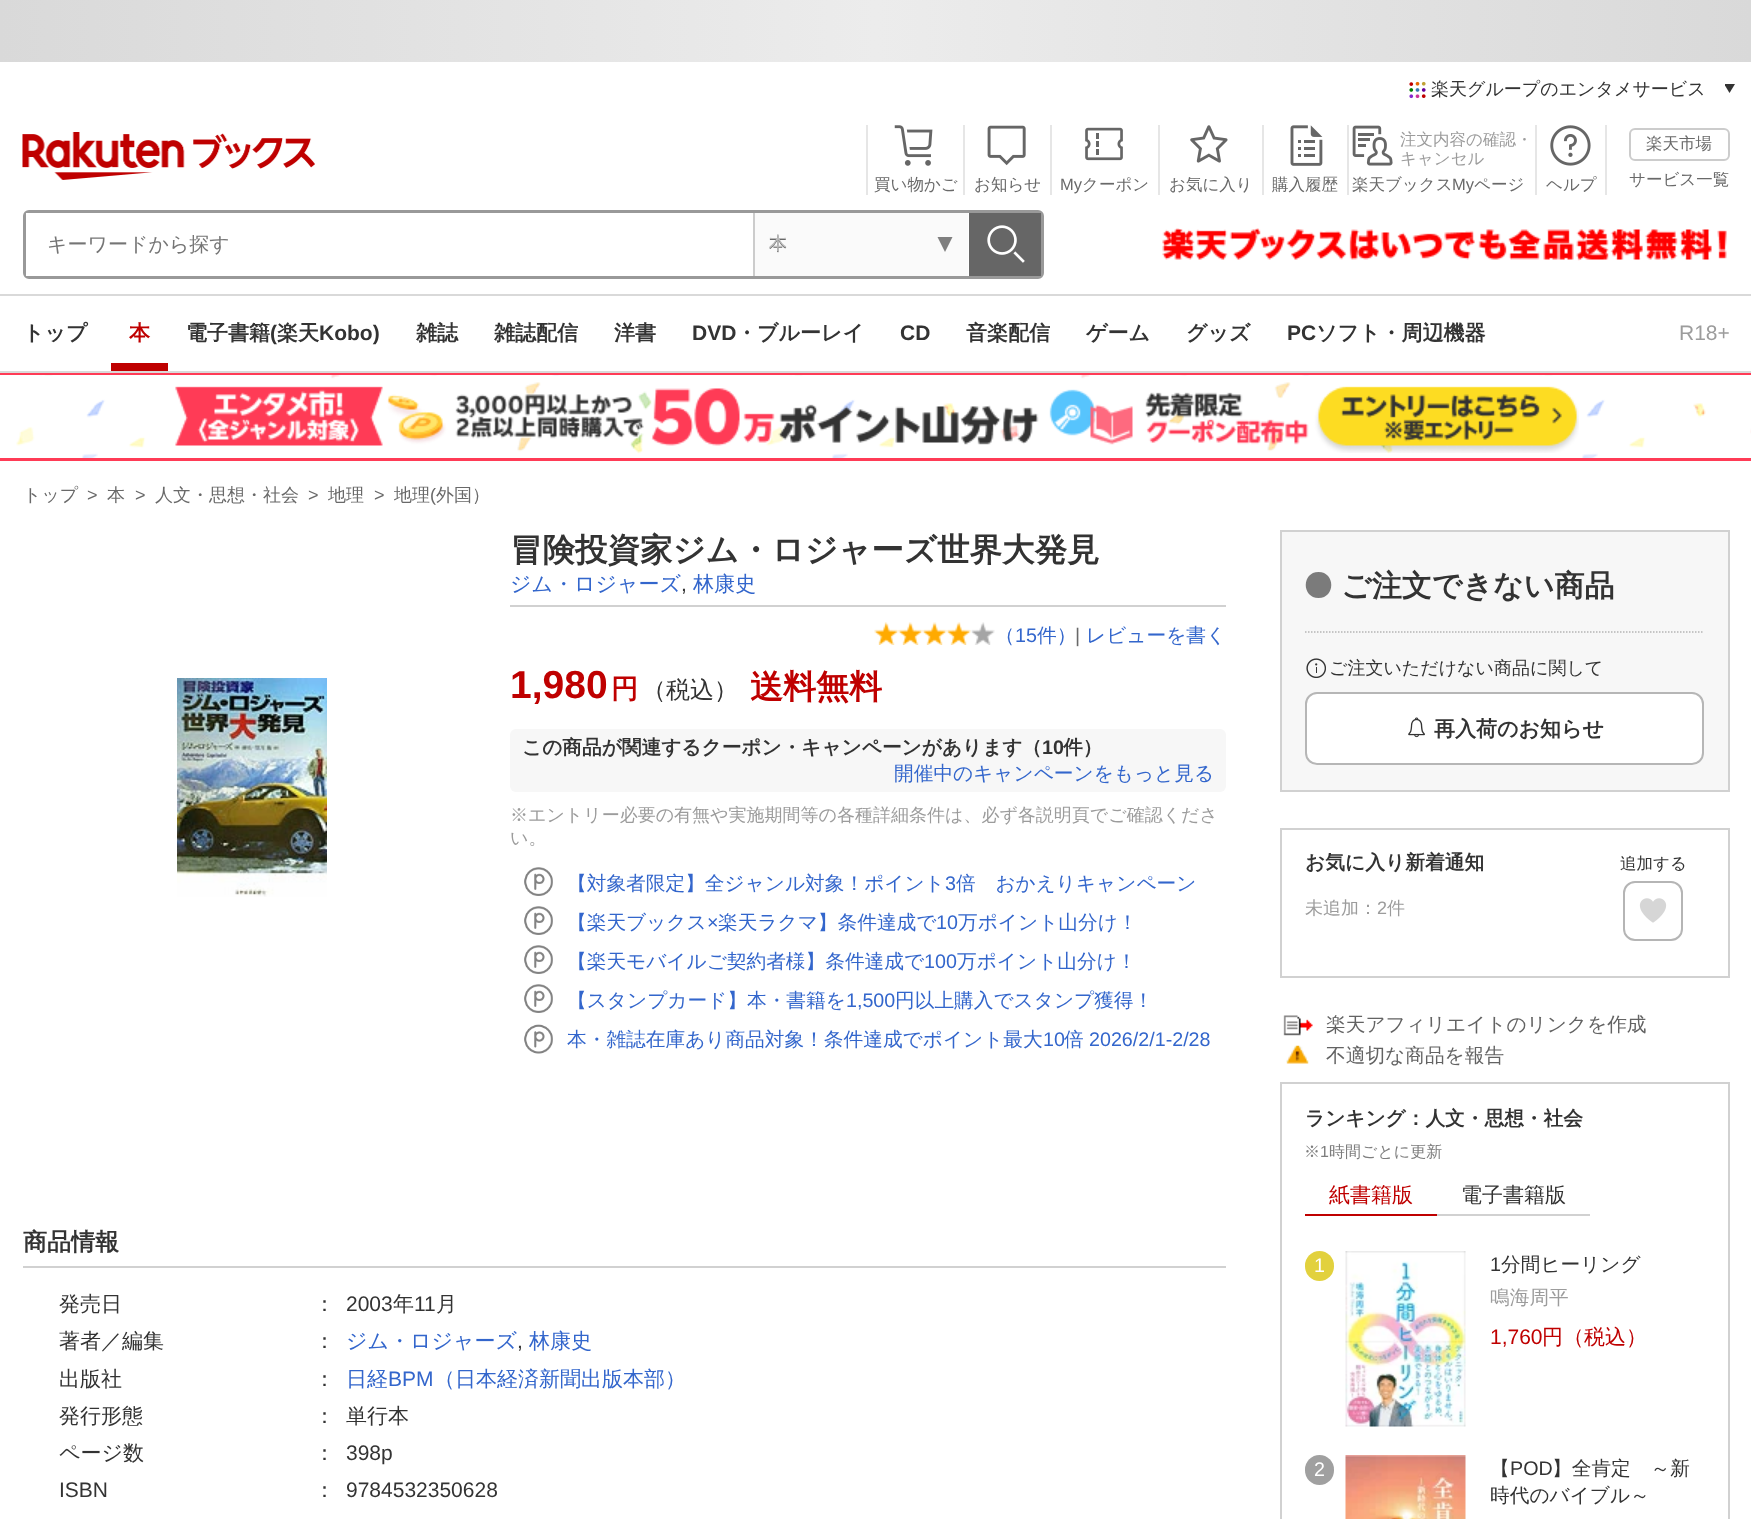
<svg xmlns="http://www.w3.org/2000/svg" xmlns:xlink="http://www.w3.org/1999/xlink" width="1751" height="1519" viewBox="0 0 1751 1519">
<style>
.cls-1{font:500 18px WenQuanYi Zen Hei;fill:#333333}
.cls-2{font:500 16.5px WenQuanYi Zen Hei;fill:#696969}
.cls-3{font:16.5px Liberation Sans;fill:#696969}
.cls-4{font:500 16.5px WenQuanYi Zen Hei;fill:#9c9c9c}
.cls-5{font:500 20px WenQuanYi Zen Hei;fill:#757575}
.cls-6{font:500 18px WenQuanYi Zen Hei;fill:#696969}
.cls-7{font:500 18px WenQuanYi Zen Hei;fill:#bbbbbb}
.cls-8{font:bold 21px WenQuanYi Zen Hei;fill:#333333}
.cls-9{font:bold 21px WenQuanYi Zen Hei;fill:#bf0000}
.cls-10{font:bold 21px Liberation Sans;fill:#333333}
.cls-11{font:21px Liberation Sans;fill:#9c9c9c}
.cls-12{font:18px Liberation Sans;fill:#696969}
.cls-13{font:bold 32.5px WenQuanYi Zen Hei;fill:#333333}
.cls-14{font:500 21px WenQuanYi Zen Hei;fill:#3366cc}
.cls-15{font:21px Liberation Sans;fill:#333333}
.cls-16{font:500 19.7px WenQuanYi Zen Hei;fill:#3366cc}
.cls-17{font:19.7px Liberation Sans;fill:#3366cc}
.cls-18{font:19.7px Liberation Sans;fill:#696969}
.cls-19{font:bold 39px Liberation Sans;fill:#bf0000}
.cls-20{font:bold 27px WenQuanYi Zen Hei;fill:#bf0000}
.cls-21{font:500 24px WenQuanYi Zen Hei;fill:#333333}
.cls-22{font:bold 33px WenQuanYi Zen Hei;fill:#bf0000}
.cls-23{font:bold 19.7px WenQuanYi Zen Hei;fill:#333333}
.cls-24{font:bold 19.7px Liberation Sans;fill:#333333}
.cls-25{font:500 18px WenQuanYi Zen Hei;fill:#9c9c9c}
.cls-26{font:bold 24px WenQuanYi Zen Hei;fill:#333333}
.cls-27{font:500 21px WenQuanYi Zen Hei;fill:#333333}
.cls-28{font:21px Liberation Sans;fill:#3366cc}
.cls-29{font:bold 30px WenQuanYi Zen Hei;fill:#333333}
.cls-30{font:bold 19.75px WenQuanYi Zen Hei;fill:#333333}
.cls-31{font:18px Liberation Sans;fill:#9c9c9c}
.cls-32{font:500 16.5px WenQuanYi Zen Hei;fill:#333333}
.cls-33{font:500 19.7px WenQuanYi Zen Hei;fill:#636363}
.cls-34{font:500 16px WenQuanYi Zen Hei;fill:#7d7d7d}
.cls-35{font:16px Liberation Sans;fill:#7d7d7d}
.cls-36{font:500 21px WenQuanYi Zen Hei;fill:#bf0000}
.cls-37{font:19.7px Liberation Sans;fill:#ffffff}
.cls-38{font:19.7px Liberation Sans;fill:#333333}
.cls-39{font:500 19.7px WenQuanYi Zen Hei;fill:#333333}
.cls-40{font:500 19.7px WenQuanYi Zen Hei;fill:#9c9c9c}
.cls-41{font:21px Liberation Sans;fill:#bf0000}
</style>
<defs>
<linearGradient id="g1" gradientUnits="userSpaceOnUse" x1="0" y1="31" x2="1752" y2="31"><stop offset="0" stop-color="#d9d9d9"/><stop offset="0.5" stop-color="#ececec"/><stop offset="1" stop-color="#d9d9d9"/></linearGradient>
</defs>
<rect width="100%" height="100%" fill="#ffffff"/>
<rect fill="url(#g1)" x="0" y="0" width="1751" height="62"/>
<image xlink:href="image0.png" x="1409" y="81" width="17" height="18"/>
<path fill="#333333" d="M1725 85.5V84H1735L1729.5 93Z"/>
<rect fill="#d9d9d9" x="0" y="371" width="1751" height="2"/>
<image xlink:href="image1.png" x="22" y="132" width="293" height="48"/>
<rect fill="#e6e6e6" x="866" y="125" width="2" height="70"/>
<image xlink:href="image2.png" x="894" y="125" width="39" height="41"/>
<rect fill="#e6e6e6" x="963" y="125" width="2" height="70"/>
<image xlink:href="image3.png" x="987" y="125" width="39" height="41"/>
<rect fill="#e6e6e6" x="1050" y="125" width="2" height="70"/>
<image xlink:href="image4.png" x="1085" y="127" width="38" height="34"/>
<rect fill="#e6e6e6" x="1158" y="125" width="2" height="70"/>
<image xlink:href="image5.png" x="1190" y="125" width="38" height="38"/>
<rect fill="#e6e6e6" x="1262" y="125" width="2" height="70"/>
<image xlink:href="image6.png" x="1290" y="125" width="33" height="41"/>
<rect fill="#e6e6e6" x="1347" y="125" width="2" height="70"/>
<image xlink:href="image7.png" x="1352" y="125" width="41" height="41"/>
<rect fill="#e6e6e6" x="1535" y="125" width="2" height="70"/>
<image xlink:href="image8.png" x="1550" y="125" width="41" height="41"/>
<rect fill="#e6e6e6" x="1605" y="125" width="2" height="70"/>
<rect fill="none" stroke="#cccccc" stroke-width="2" x="1630" y="129" width="99" height="31" rx="5"/>
<rect fill="none" stroke="#999999" stroke-width="3" x="24.5" y="211.5" width="1018" height="66" rx="4.5"/>
<rect fill="#ffffff" x="26" y="213" width="3" height="63"/>
<rect fill="#666666" x="969" y="213" width="72" height="63"/>
<image xlink:href="image9.png" x="987" y="225" width="38" height="38"/>
<rect fill="#fafafa" x="755" y="213" width="213" height="63"/>
<rect fill="#cccccc" x="753" y="213" width="2" height="63"/>
<path fill="#7f7f7f" d="M937.5 237H952.5L945 252Z"/>
<image xlink:href="image10.png" x="1162" y="228" width="565" height="33"/>
<rect fill="#d9d9d9" x="0" y="294" width="1751" height="2"/>
<rect fill="#bf0000" x="111" y="363" width="57" height="8"/>
<image xlink:href="image11.png" x="16" y="375" width="1735" height="83"/>
<rect fill="#ff3b56" x="0" y="373" width="1751" height="2"/>
<rect fill="#ff3b56" x="0" y="458" width="1751" height="3"/>
<image xlink:href="image12.png" x="175" y="386" width="1404" height="67"/>
<image xlink:href="image13.png" x="177" y="678" width="150" height="219"/>
<rect fill="#d1d1d1" x="510" y="605" width="716" height="2"/>
<image xlink:href="image14.png" x="874" y="622" width="121" height="23"/>
<rect fill="#f7f7f7" x="510" y="729" width="716" height="63" rx="6"/>
<image xlink:href="image15.png" x="524" y="867" width="29" height="29"/>
<image xlink:href="image15.png" x="524" y="906" width="29" height="29"/>
<image xlink:href="image15.png" x="524" y="945" width="29" height="29"/>
<image xlink:href="image15.png" x="524" y="984" width="29" height="29"/>
<image xlink:href="image16.png" x="524" y="1024" width="29" height="30"/>
<rect fill="#d1d1d1" x="23" y="1266" width="1203" height="2"/>
<rect fill="#f7f7f7" stroke="#d1d1d1" stroke-width="2" x="1281" y="531" width="448" height="260"/>
<path fill="none" stroke="#b5b5b5" stroke-width="1.5" stroke-dasharray="1.5 1.5" d="M1305 632H1704"/>
<path fill="#7b7b7b" d="M1318.5 572C1301.5 572 1301.5 598 1318.5 598C1335.5 598 1335.5 572 1318.5 572Z"/>
<image xlink:href="image17.png" x="1306" y="658" width="20" height="20"/>
<rect fill="#ffffff" stroke="#b6b6b6" stroke-width="2" x="1306" y="693" width="397" height="71" rx="11"/>
<image xlink:href="image18.png" x="1408" y="717" width="17" height="21"/>
<rect fill="none" stroke="#d1d1d1" stroke-width="2" x="1281" y="829" width="448" height="148"/>
<image xlink:href="image19.png" x="1639" y="898" width="28" height="25"/>
<rect fill="none" stroke="#b5b5b5" stroke-width="2" x="1624" y="882" width="58" height="58" rx="11"/>
<image xlink:href="image20.png" x="1283" y="1015" width="30" height="21"/>
<image xlink:href="image21.png" x="1286" y="1045" width="23" height="19"/>
<rect fill="none" stroke="#d1d1d1" stroke-width="2" x="1281" y="1083" width="448" height="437"/>
<rect fill="#bf0000" x="1305" y="1214" width="132" height="2"/>
<rect fill="#d1d1d1" x="1437" y="1214" width="153" height="2"/>
<rect fill="#e2d13d" x="1305" y="1251" width="29" height="30" rx="14.5"/>
<image xlink:href="image22.png" x="1345" y="1251" width="121" height="176"/>
<rect fill="#a0a0a0" x="1305" y="1455" width="29" height="30" rx="14.5"/>
<image xlink:href="image23.png" x="1345" y="1455" width="121" height="64"/>
<text class="cls-1" x="1431" y="95">楽天グループのエンタメサービス</text>
<text class="cls-2" x="874" y="190">買い物かご</text>
<text class="cls-2" x="974" y="190">お知らせ</text>
<text class="cls-3" x="1060" y="190">My</text>
<text class="cls-2" x="1082" y="190">クーポン</text>
<text class="cls-2" x="1169" y="190">お気に入り</text>
<text class="cls-2" x="1272" y="190">購入履歴</text>
<text class="cls-4"><tspan x="1400" y="145">注文内容の確認・</tspan><tspan x="1400" y="164">キャンセル</tspan></text>
<text class="cls-2" x="1352" y="190">楽天ブックス</text>
<text class="cls-3" x="1452" y="190">My</text>
<text class="cls-2" x="1474" y="190">ページ</text>
<text class="cls-2" x="1546" y="190">ヘルプ</text>
<text class="cls-2" x="1646" y="149">楽天市場</text>
<text class="cls-2" x="1629" y="185">サービス一覧</text>
<text class="cls-5" x="47" y="251">キーワードから探す</text>
<text class="cls-6" x="769" y="250">本</text>
<text class="cls-7" x="769" y="249">本</text>
<text class="cls-8" x="23" y="340">トップ</text>
<text class="cls-9" x="129" y="340">本</text>
<text class="cls-8" x="186" y="340">電子書籍</text>
<text class="cls-10" x="270" y="340">(</text>
<text class="cls-8" x="277" y="340">楽天</text>
<text class="cls-10" x="319" y="340">Kobo)</text>
<text class="cls-8" x="416" y="340">雑誌</text>
<text class="cls-8" x="494" y="340">雑誌配信</text>
<text class="cls-8" x="614" y="340">洋書</text>
<text class="cls-10" x="692" y="340">DVD</text>
<text class="cls-8" x="736" y="340">・ブルーレイ</text>
<text class="cls-10" x="900" y="340">CD</text>
<text class="cls-8" x="966" y="340">音楽配信</text>
<text class="cls-8" x="1086" y="340">ゲーム</text>
<text class="cls-8" x="1186" y="340">グッズ</text>
<text class="cls-10" x="1287" y="340">PC</text>
<text class="cls-8" x="1316" y="340">ソフト・周辺機器</text>
<text class="cls-11" x="1679" y="340">R18+</text>
<text class="cls-6" x="23" y="501">トップ</text>
<text class="cls-12" x="87" y="501">&gt;</text>
<text class="cls-6" x="107" y="501">本</text>
<text class="cls-12" x="135" y="501">&gt;</text>
<text class="cls-6" x="155" y="501">人文・思想・社会</text>
<text class="cls-12" x="308" y="501">&gt;</text>
<text class="cls-6" x="328" y="501">地理</text>
<text class="cls-12" x="374" y="501">&gt;</text>
<text class="cls-6" x="394" y="501">地理</text>
<text class="cls-12" x="430" y="501">(</text>
<text class="cls-6" x="436" y="501">外国）</text>
<text class="cls-13" x="510" y="561">冒険投資家ジム・ロジャーズ世界大発見</text>
<text class="cls-14" x="510" y="591">ジム・ロジャーズ</text>
<text class="cls-15" x="681" y="591">,</text>
<text class="cls-14" x="693" y="591">林康史</text>
<text class="cls-16" x="995" y="642">（</text>
<text class="cls-17" x="1015" y="642">15</text>
<text class="cls-16" x="1037" y="642">件）</text>
<text class="cls-18" x="1075" y="642">|</text>
<text class="cls-16" x="1086" y="642">レビューを書く</text>
<text class="cls-19" x="510" y="698">1,980</text>
<text class="cls-20" x="611" y="698">円</text>
<text class="cls-21" x="642" y="698">（税込）</text>
<text class="cls-22" x="750" y="698">送料無料</text>
<text class="cls-23" x="522" y="754">この商品が関連するクーポン・キャンペーンがあります</text>
<text class="cls-23" x="1022" y="754">（</text>
<text class="cls-24" x="1042" y="754">10</text>
<text class="cls-23" x="1063" y="754">件）</text>
<text class="cls-16" x="894" y="780">開催中のキャンペーンをもっと見る</text>
<text class="cls-25"><tspan x="510" y="821">※エントリー必要の有無や実施期間等の各種詳細条件は、必ず各説明頁でご確認くださ</tspan><tspan x="510" y="844">い。</tspan></text>
<text class="cls-16" x="567" y="890">【対象者限定】全ジャンル対象！ポイント</text>
<text class="cls-17" x="945" y="890">3</text>
<text class="cls-16" x="956" y="890">倍　おかえりキャンペーン</text>
<text class="cls-16" x="567" y="929">【楽天ブックス</text>
<text class="cls-17" x="707" y="929">×</text>
<text class="cls-16" x="718" y="929">楽天ラクマ】条件達成で</text>
<text class="cls-17" x="936" y="929">10</text>
<text class="cls-16" x="958" y="929">万ポイント山分け！</text>
<text class="cls-16" x="567" y="968">【楽天モバイルご契約者様】条件達成で</text>
<text class="cls-17" x="924" y="968">100</text>
<text class="cls-16" x="957" y="968">万ポイント山分け！</text>
<text class="cls-16" x="567" y="1007">【スタンプカード】本・書籍を</text>
<text class="cls-17" x="846" y="1007">1,500</text>
<text class="cls-16" x="895" y="1007">円以上購入でスタンプ獲得！</text>
<text class="cls-16" x="567" y="1046">本・雑誌在庫あり商品対象！条件達成でポイント最大</text>
<text class="cls-17" x="1043" y="1046">10</text>
<text class="cls-16" x="1064" y="1046">倍</text>
<text class="cls-17" x="1089" y="1046">2026/2/1-2/28</text>
<text class="cls-26" x="23" y="1250">商品情報</text>
<text class="cls-27" x="59" y="1311">発売日</text>
<text class="cls-27" x="314" y="1311">：</text>
<text class="cls-15" x="346" y="1311">2003</text>
<text class="cls-27" x="393" y="1311">年</text>
<text class="cls-15" x="414" y="1311">11</text>
<text class="cls-27" x="436" y="1311">月</text>
<text class="cls-27" x="59" y="1348">著者／編集</text>
<text class="cls-27" x="314" y="1348">：</text>
<text class="cls-14" x="346" y="1348">ジム・ロジャーズ</text>
<text class="cls-15" x="517" y="1348">,</text>
<text class="cls-14" x="529" y="1348">林康史</text>
<text class="cls-27" x="59" y="1386">出版社</text>
<text class="cls-27" x="314" y="1386">：</text>
<text class="cls-14" x="346" y="1386">日経</text>
<text class="cls-28" x="388" y="1386">BPM</text>
<text class="cls-14" x="434" y="1386">（日本経済新聞出版本部）</text>
<text class="cls-27" x="59" y="1423">発行形態</text>
<text class="cls-27" x="314" y="1423">：</text>
<text class="cls-27" x="346" y="1423">単行本</text>
<text class="cls-27" x="59" y="1460">ページ数</text>
<text class="cls-27" x="314" y="1460">：</text>
<text class="cls-15" x="346" y="1460">398p</text>
<text class="cls-15" x="59" y="1497">ISBN</text>
<text class="cls-27" x="314" y="1497">：</text>
<text class="cls-15" x="346" y="1497">9784532350628</text>
<text class="cls-29" x="1341" y="596">ご注文できない商品</text>
<text class="cls-1" x="1329" y="674">ご注文いただけない商品に関して</text>
<text class="cls-8" x="1434" y="736">再入荷のお知らせ</text>
<text class="cls-30" x="1305" y="869">お気に入り新着通知</text>
<text class="cls-25" x="1305" y="914">未追加：</text>
<text class="cls-31" x="1377" y="914">2</text>
<text class="cls-25" x="1387" y="914">件</text>
<text class="cls-32" x="1620" y="869">追加する</text>
<text class="cls-33"><tspan x="1326" y="1031">楽天アフィリエイトのリンクを作成</tspan><tspan x="1326" y="1062">不適切な商品を報告</tspan></text>
<text class="cls-23" x="1305" y="1125">ランキング：人文・思想・社会</text>
<text class="cls-34" x="1304" y="1157">※</text>
<text class="cls-35" x="1320" y="1157">1</text>
<text class="cls-34" x="1329" y="1157">時間ごとに更新</text>
<text class="cls-36" x="1329" y="1202">紙書籍版</text>
<text class="cls-27" x="1461" y="1202">電子書籍版</text>
<text class="cls-37" x="1314" y="1272">1</text>
<text class="cls-38" x="1490" y="1271">1</text>
<text class="cls-39" x="1501" y="1271">分間ヒーリング</text>
<text class="cls-40" x="1490" y="1304">鳴海周平</text>
<text class="cls-41" x="1490" y="1344">1,760</text>
<text class="cls-36" x="1542" y="1344">円（税込）</text>
<text class="cls-37" x="1314" y="1476">2</text>
<text class="cls-39" x="1490" y="1475">【</text>
<text class="cls-38" x="1510" y="1475">POD</text>
<text class="cls-39" x="1552" y="1475">】全肯定　～新</text>
<text class="cls-39" x="1490" y="1502">時代のバイブル～</text>
</svg>
